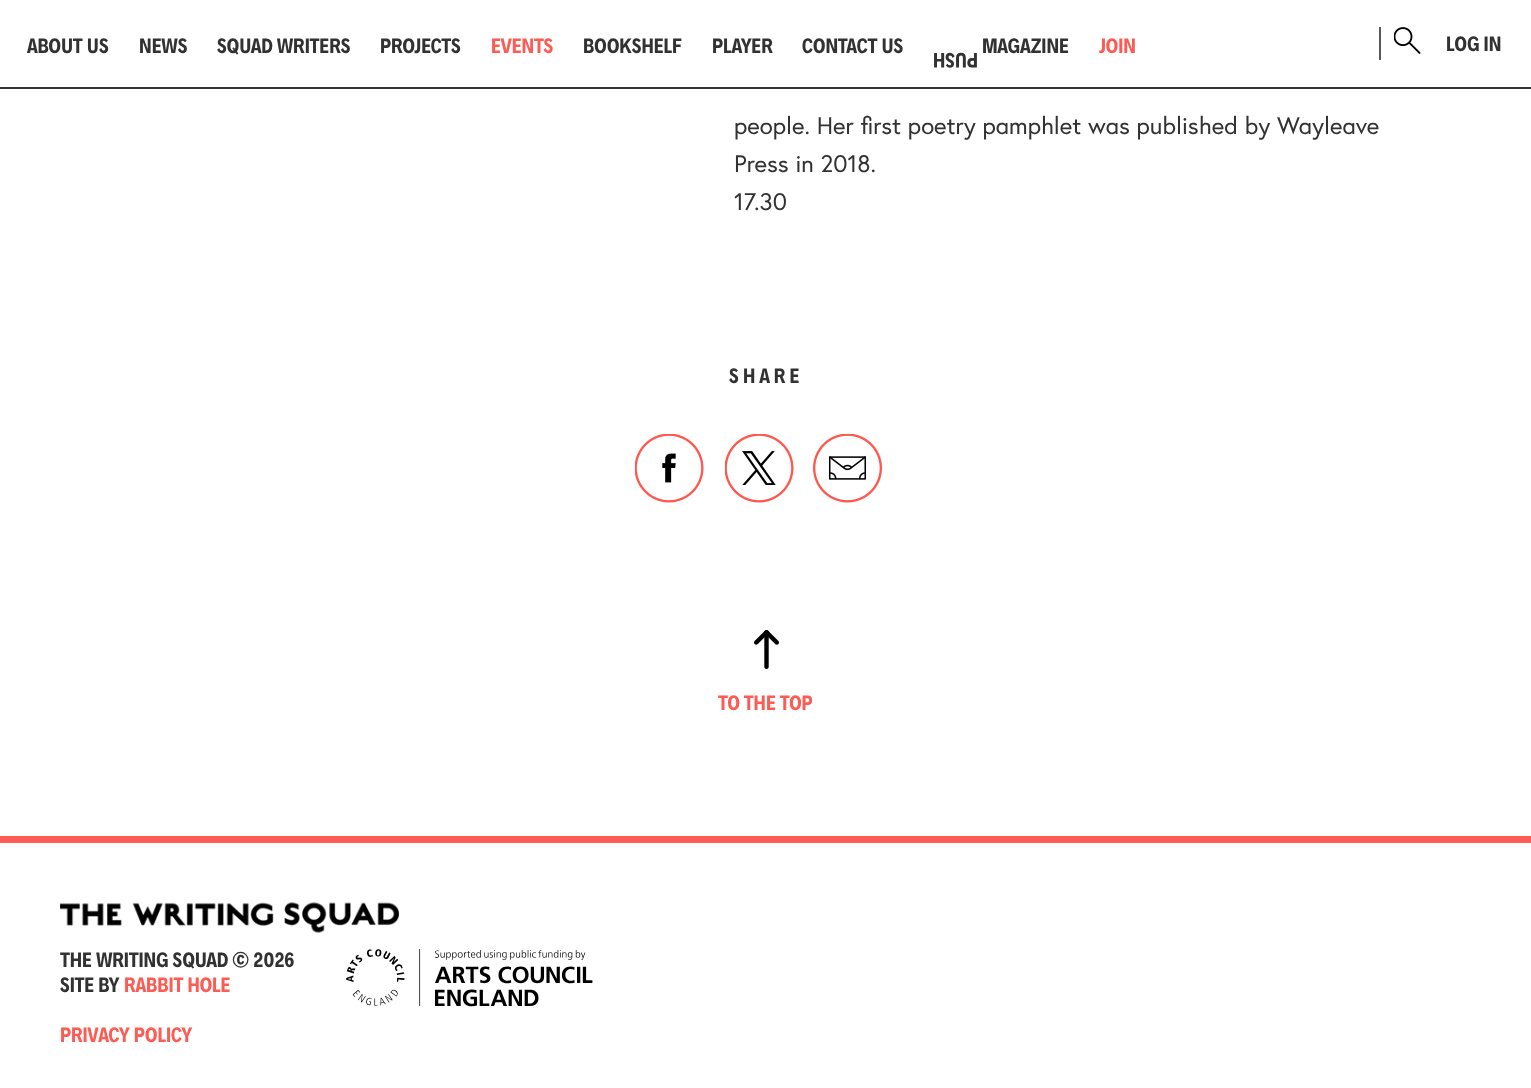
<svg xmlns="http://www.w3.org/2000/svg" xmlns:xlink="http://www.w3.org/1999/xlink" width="1531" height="1088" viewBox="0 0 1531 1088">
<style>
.cls-1{font:bold 21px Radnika;fill:#323232}
.cls-2{font:bold 21px Radnika;fill:#fc5c53}
.cls-3{font:24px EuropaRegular;fill:#323232}
.cls-4{font:bold 21px Radnika;letter-spacing:4.25px;fill:#323232}
</style>
<rect width="100%" height="100%" fill="#ffffff"/>
<rect fill="#323232" x="0" y="87" width="1531" height="2"/>
<image xlink:href="image0.png" x="1394" y="27" width="27" height="27"/>
<rect fill="#575757" x="1379" y="27" width="2" height="33"/>
<image xlink:href="image1.png" x="635" y="434" width="69" height="69"/>
<image xlink:href="image2.png" x="725" y="434" width="69" height="69"/>
<image xlink:href="image3.png" x="813" y="434" width="69" height="69"/>
<image xlink:href="image4.png" x="754" y="630" width="25" height="39"/>
<rect fill="#fc5c53" x="0" y="836" width="1531" height="7"/>
<image xlink:href="image5.png" x="60" y="902" width="339" height="31"/>
<image xlink:href="image6.png" x="346" y="949" width="247" height="58"/>
<text class="cls-1" x="27" y="53">ABOUT US</text>
<text class="cls-1" x="139" y="53">NEWS</text>
<text class="cls-1" x="217" y="53">SQUAD WRITERS</text>
<text class="cls-1" x="380" y="53">PROJECTS</text>
<text class="cls-2" x="491" y="53">EVENTS</text>
<text class="cls-1" x="583" y="53">BOOKSHELF</text>
<text class="cls-1" x="712" y="53">PLAYER</text>
<text class="cls-1" x="802" y="53">CONTACT US</text>
<text class="cls-1" x="982" y="53">MAGAZINE</text>
<text class="cls-1" x="978" y="53" transform="rotate(180 978 53)">PUSH</text>
<text class="cls-2" x="1099" y="53">JOIN</text>
<text class="cls-1" x="1446" y="51">LOG IN</text>
<text class="cls-3"><tspan x="734" y="134">people. Her first poetry pamphlet was published by Wayleave</tspan><tspan x="734" y="172">Press in 2018.</tspan><tspan x="734" y="210">17.30</tspan></text>
<text class="cls-4" x="729" y="383">SHARE</text>
<text class="cls-2" x="718" y="710">TO THE TOP</text>
<text class="cls-1"><tspan x="60" y="967">THE WRITING SQUAD © 2026</tspan><tspan x="60" y="992">SITE BY</tspan></text>
<text class="cls-2" x="124" y="992">RABBIT HOLE</text>
<text class="cls-2" x="60" y="1042">PRIVACY POLICY</text>
</svg>
